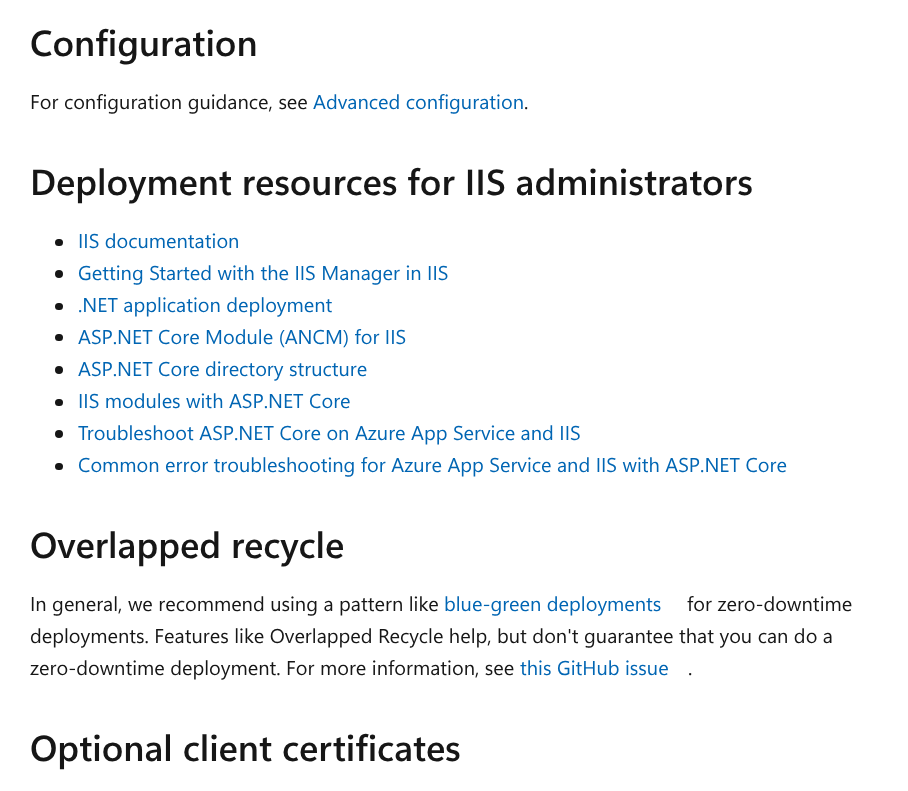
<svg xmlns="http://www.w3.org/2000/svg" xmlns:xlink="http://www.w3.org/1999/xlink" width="908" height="791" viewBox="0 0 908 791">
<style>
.cls-1{font:600 36.2px Segoe UI;fill:#161616}
.cls-2{font:20px Segoe UI;fill:#161616}
.cls-3{font:20px Segoe UI;fill:#0065b3}
</style>
<rect width="100%" height="100%" fill="#ffffff"/>
<rect fill="#161616" x="55" y="239" width="8" height="7" rx="3.5"/>
<circle fill="#161616" cx="59" cy="274" r="4"/>
<rect fill="#161616" x="55" y="303" width="8" height="7" rx="3.5"/>
<rect fill="#161616" x="55" y="334" width="8" height="7" rx="3.5"/>
<circle fill="#161616" cx="59" cy="370" r="4"/>
<rect fill="#161616" x="55" y="399" width="8" height="7" rx="3.5"/>
<circle fill="#161616" cx="59" cy="434" r="4"/>
<rect fill="#161616" x="55" y="463" width="8" height="7" rx="3.5"/>
<text class="cls-1" x="30" y="56">Configuration</text>
<text class="cls-2" x="30" y="109">For configuration guidance, see</text>
<text class="cls-3" x="313" y="109">Advanced configuration</text>
<text class="cls-2" x="524" y="109">.</text>
<text class="cls-1" x="30" y="195">Deployment resources for IIS administrators</text>
<text class="cls-3"><tspan x="78" y="248">IIS documentation</tspan><tspan x="78" y="280">Getting Started with the IIS Manager in IIS</tspan><tspan x="78" y="312">.NET application deployment</tspan><tspan x="78" y="344">ASP.NET Core Module (ANCM) for IIS</tspan><tspan x="78" y="376">ASP.NET Core directory structure</tspan><tspan x="78" y="408">IIS modules with ASP.NET Core</tspan><tspan x="78" y="440">Troubleshoot ASP.NET Core on Azure App Service and IIS</tspan><tspan x="78" y="472">Common error troubleshooting for Azure App Service and IIS with ASP.NET Core</tspan></text>
<text class="cls-1" x="30" y="558">Overlapped recycle</text>
<text class="cls-2" x="30" y="611">In general, we recommend using a pattern like</text>
<text class="cls-3" x="444" y="611">blue-green deployments</text>
<text class="cls-2" x="687" y="611">for zero-downtime</text>
<text class="cls-2"><tspan x="30" y="643">deployments. Features like Overlapped Recycle help, but don't guarantee that you can do a</tspan><tspan x="30" y="675">zero-downtime deployment. For more information, see</tspan></text>
<text class="cls-3" x="520" y="675">this GitHub issue</text>
<text class="cls-2" x="688" y="675">.</text>
<text class="cls-1" x="30" y="761">Optional client certificates</text>
</svg>
